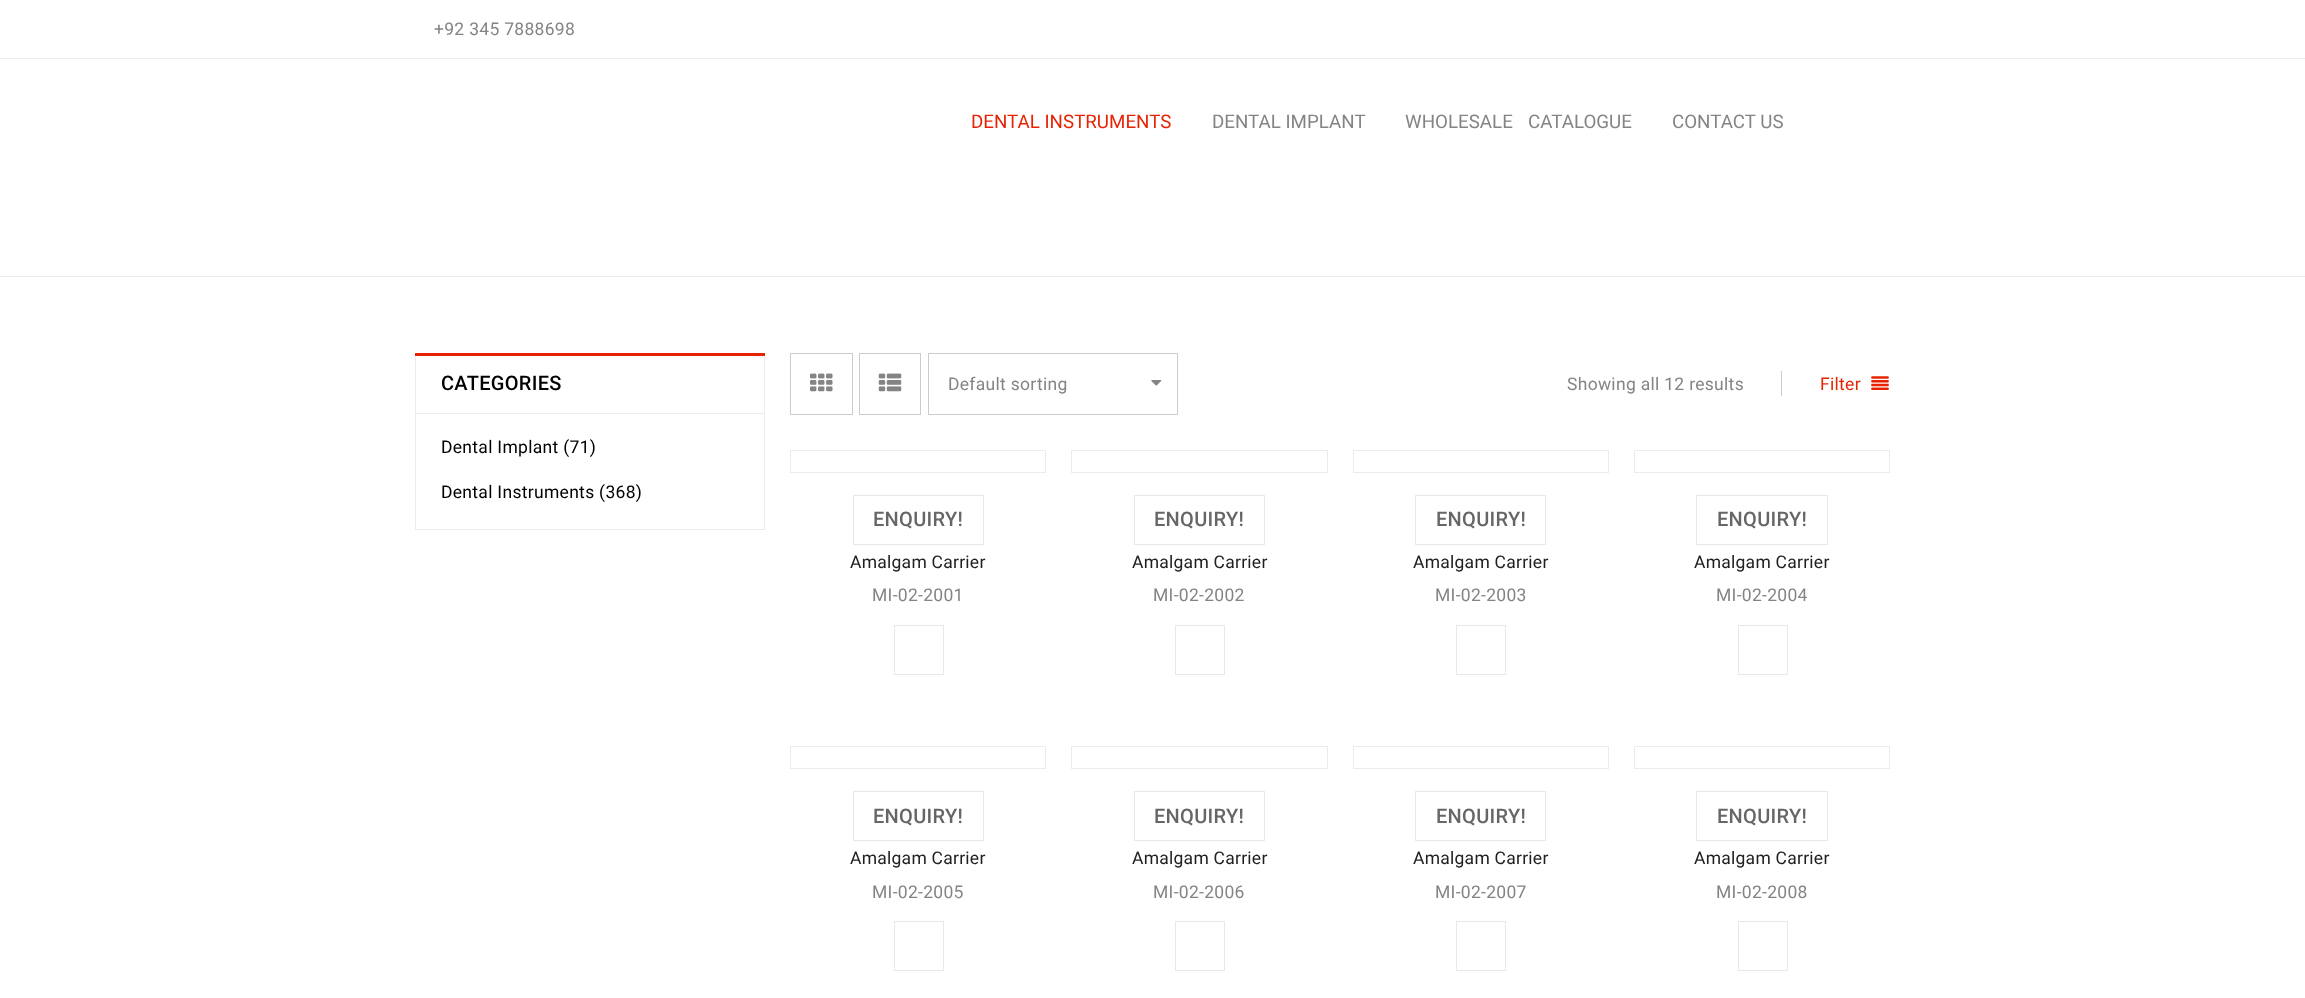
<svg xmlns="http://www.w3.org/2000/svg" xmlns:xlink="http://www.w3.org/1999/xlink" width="2305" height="998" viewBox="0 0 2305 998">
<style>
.cls-1{font:17.5px Roboto;letter-spacing:0.3px;fill:#848484}
.cls-2{font:18.75px Roboto;fill:#e72304}
.cls-3{font:18.75px Roboto;fill:#848484}
.cls-4{font:500 20px Roboto;letter-spacing:0.3px;fill:#000000}
.cls-5{font:17.5px Roboto;letter-spacing:0.3px;fill:#000000}
.cls-6{font:17.5px Roboto;letter-spacing:0.3px;fill:#e72304}
.cls-7{font:500 20px Roboto;letter-spacing:0.3px;fill:#666666}
.cls-8{font:17.5px Roboto;letter-spacing:0.25px;fill:#202020}
</style>
<rect width="100%" height="100%" fill="#ffffff"/>
<rect fill="#ebebeb" x="0" y="58" width="2305" height="1"/>
<rect fill="#ebebeb" x="0" y="276" width="2305" height="1"/>
<rect fill="none" stroke="#ebebeb" x="415.5" y="353.5" width="349" height="176"/>
<rect fill="#e72304" x="415" y="353" width="350" height="3"/>
<rect fill="#ebebeb" x="416" y="413" width="348" height="1"/>
<rect fill="none" stroke="#cccccc" x="790.5" y="353.5" width="62" height="61"/>
<image xlink:href="image0.png" x="810" y="373" width="23" height="19"/>
<rect fill="none" stroke="#cccccc" x="859.5" y="353.5" width="61" height="61"/>
<image xlink:href="image1.png" x="878" y="373" width="24" height="19"/>
<rect fill="none" stroke="#cccccc" x="928.5" y="353.5" width="249" height="61"/>
<image xlink:href="image2.png" x="1151" y="380" width="11" height="6"/>
<rect fill="#cccccc" x="1781" y="371" width="1" height="25"/>
<image xlink:href="image3.png" x="1871" y="376" width="18" height="14"/>
<rect fill="none" stroke="#ebebeb" x="790.5" y="450.5" width="255" height="22"/>
<rect fill="none" stroke="#e8e8e8" x="853.5" y="495.5" width="130" height="49"/>
<rect fill="none" stroke="#e8e8e8" x="894.5" y="625.5" width="49" height="49"/>
<rect fill="none" stroke="#ebebeb" x="1071.5" y="450.5" width="256" height="22"/>
<rect fill="none" stroke="#e8e8e8" x="1134.5" y="495.5" width="130" height="49"/>
<rect fill="none" stroke="#e8e8e8" x="1175.5" y="625.5" width="49" height="49"/>
<rect fill="none" stroke="#ebebeb" x="1353.5" y="450.5" width="255" height="22"/>
<rect fill="none" stroke="#e8e8e8" x="1415.5" y="495.5" width="130" height="49"/>
<rect fill="none" stroke="#e8e8e8" x="1456.5" y="625.5" width="49" height="49"/>
<rect fill="none" stroke="#ebebeb" x="1634.5" y="450.5" width="255" height="22"/>
<rect fill="none" stroke="#e8e8e8" x="1696.5" y="495.5" width="131" height="49"/>
<rect fill="none" stroke="#e8e8e8" x="1738.5" y="625.5" width="49" height="49"/>
<rect fill="none" stroke="#ebebeb" x="790.5" y="746.5" width="255" height="22"/>
<rect fill="none" stroke="#e8e8e8" x="853.5" y="791.5" width="130" height="49"/>
<rect fill="none" stroke="#e8e8e8" x="894.5" y="921.5" width="49" height="49"/>
<rect fill="none" stroke="#ebebeb" x="1071.5" y="746.5" width="256" height="22"/>
<rect fill="none" stroke="#e8e8e8" x="1134.5" y="791.5" width="130" height="49"/>
<rect fill="none" stroke="#e8e8e8" x="1175.5" y="921.5" width="49" height="49"/>
<rect fill="none" stroke="#ebebeb" x="1353.5" y="746.5" width="255" height="22"/>
<rect fill="none" stroke="#e8e8e8" x="1415.5" y="791.5" width="130" height="49"/>
<rect fill="none" stroke="#e8e8e8" x="1456.5" y="921.5" width="49" height="49"/>
<rect fill="none" stroke="#ebebeb" x="1634.5" y="746.5" width="255" height="22"/>
<rect fill="none" stroke="#e8e8e8" x="1696.5" y="791.5" width="131" height="49"/>
<rect fill="none" stroke="#e8e8e8" x="1738.5" y="921.5" width="49" height="49"/>
<text class="cls-1" x="434" y="35">+92 345 7888698</text>
<text class="cls-2" x="971" y="128">DENTAL INSTRUMENTS</text>
<text class="cls-3" x="1212" y="128">DENTAL IMPLANT</text>
<text class="cls-3" x="1405" y="128">WHOLESALE</text>
<text class="cls-3" x="1528" y="128">CATALOGUE</text>
<text class="cls-3" x="1672" y="128">CONTACT US</text>
<text class="cls-4" x="441" y="390">CATEGORIES</text>
<text class="cls-5" x="441" y="453">Dental Implant (71)</text>
<text class="cls-5" x="441" y="498">Dental Instruments (368)</text>
<text class="cls-1" x="948" y="390">Default sorting</text>
<text class="cls-1" x="1567" y="390">Showing all 12 results</text>
<text class="cls-6" x="1820" y="390">Filter</text>
<text class="cls-7" x="873" y="526">ENQUIRY!</text>
<text class="cls-8" x="850" y="568">Amalgam Carrier</text>
<text class="cls-1" x="872" y="601">MI-02-2001</text>
<text class="cls-7" x="1154" y="526">ENQUIRY!</text>
<text class="cls-8" x="1132" y="568">Amalgam Carrier</text>
<text class="cls-1" x="1153" y="601">MI-02-2002</text>
<text class="cls-7" x="1436" y="526">ENQUIRY!</text>
<text class="cls-8" x="1413" y="568">Amalgam Carrier</text>
<text class="cls-1" x="1435" y="601">MI-02-2003</text>
<text class="cls-7" x="1717" y="526">ENQUIRY!</text>
<text class="cls-8" x="1694" y="568">Amalgam Carrier</text>
<text class="cls-1" x="1716" y="601">MI-02-2004</text>
<text class="cls-7" x="873" y="823">ENQUIRY!</text>
<text class="cls-8" x="850" y="864">Amalgam Carrier</text>
<text class="cls-1" x="872" y="898">MI-02-2005</text>
<text class="cls-7" x="1154" y="823">ENQUIRY!</text>
<text class="cls-8" x="1132" y="864">Amalgam Carrier</text>
<text class="cls-1" x="1153" y="898">MI-02-2006</text>
<text class="cls-7" x="1436" y="823">ENQUIRY!</text>
<text class="cls-8" x="1413" y="864">Amalgam Carrier</text>
<text class="cls-1" x="1435" y="898">MI-02-2007</text>
<text class="cls-7" x="1717" y="823">ENQUIRY!</text>
<text class="cls-8" x="1694" y="864">Amalgam Carrier</text>
<text class="cls-1" x="1716" y="898">MI-02-2008</text>
</svg>
